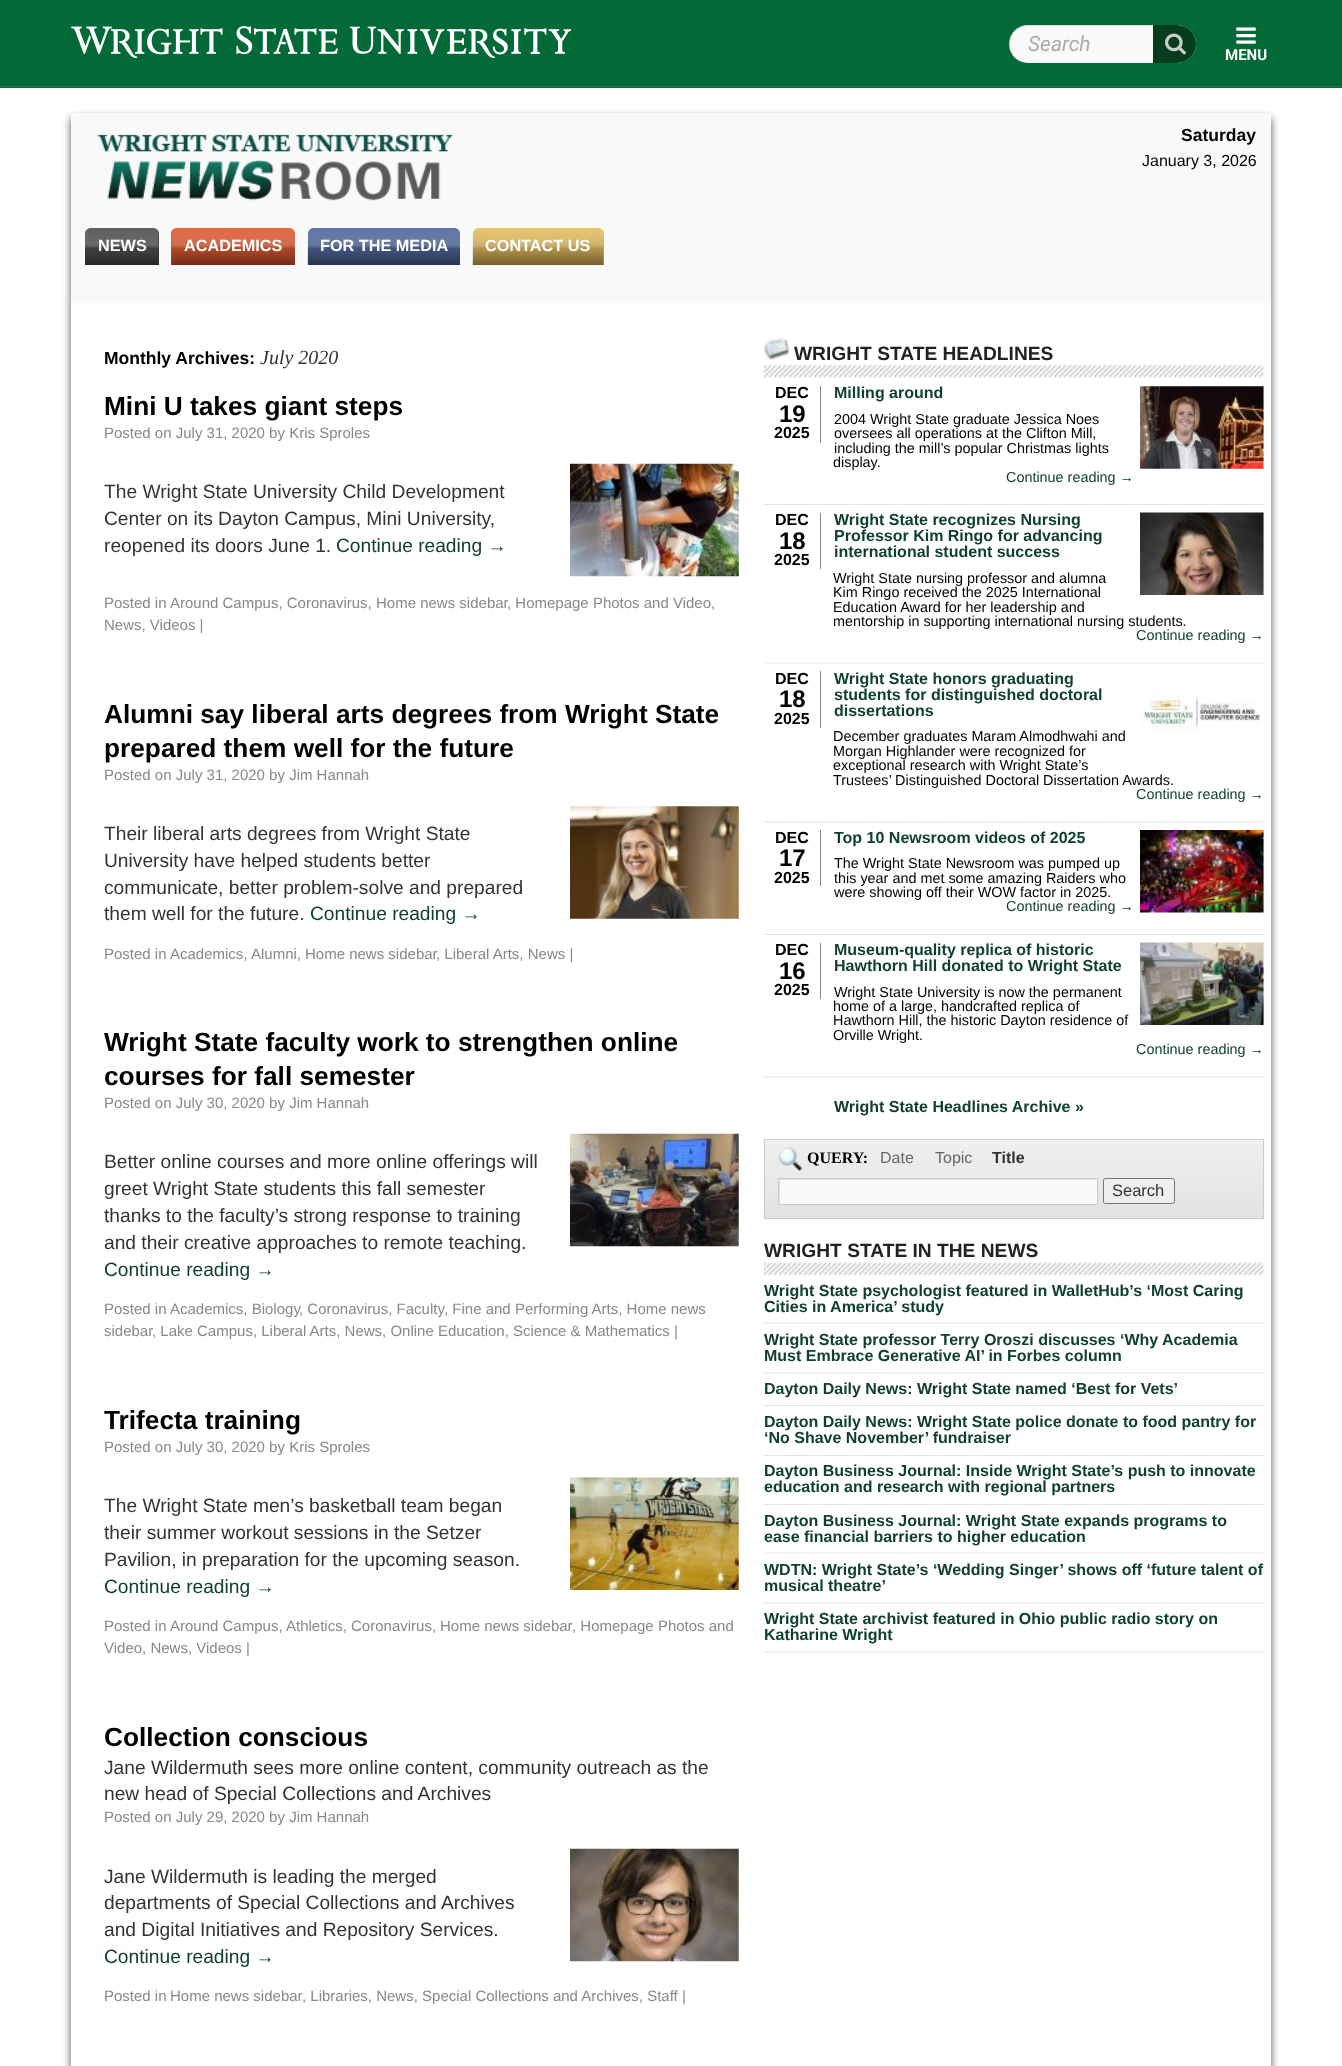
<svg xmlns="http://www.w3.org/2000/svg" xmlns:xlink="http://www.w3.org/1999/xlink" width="1342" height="2066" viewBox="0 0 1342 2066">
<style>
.cls-1{font:italic 21px Roboto;fill:#aaaaaa}
.cls-2{font:bold 15px Roboto;fill:#ffffff}
.cls-3{font:bold 17.5px Liberation Sans;fill:#000000}
.cls-4{font:16px Liberation Sans;fill:#000000}
.cls-5{font:bold 16.25px Liberation Sans;fill:#ffffff}
.cls-6{font:italic 20px Liberation Serif;fill:#333333}
.cls-7{font:bold 26.25px Liberation Sans;fill:#000000}
.cls-8{font:15px Liberation Sans;fill:#888888}
.cls-9{font:19.2px Liberation Sans;fill:#333333}
.cls-10{font:19.2px Liberation Sans;fill:#104030}
.cls-11{font:bold 19.2px Liberation Sans;fill:#222222}
.cls-12{font:bold 16px Liberation Sans;fill:#000000}
.cls-13{font:bold 24px Liberation Sans;fill:#000000}
.cls-14{font:bold 16px Liberation Sans;fill:#104030}
.cls-15{font:14.4px Liberation Sans;fill:#000000}
.cls-16{font:14.4px Liberation Sans;fill:#104030}
.cls-17{font:bold 16px Liberation Serif;fill:#000000}
.cls-18{font:16px Liberation Sans;fill:#666666}
.cls-19{font:bold 16px Liberation Sans;fill:#333333}
.cls-20{font:16.5px Liberation Sans;fill:#333333}
</style>
<defs>
<clipPath id="clip1"><rect x="779" y="1179" width="317" height="25"/></clipPath>
</defs>
<rect width="100%" height="100%" fill="#ffffff"/>
<rect fill="#026937" x="0" y="0" width="1342" height="88"/>
<rect fill="#307050" x="0" y="86" width="1342" height="1"/>
<image xlink:href="image0.png" x="71" y="26" width="500" height="32"/>
<rect fill="#f9f9f9" x="1009" y="25" width="187" height="38" rx="19"/>
<path fill="#000000" fill-opacity="0.1" d="M1029 26H1179C1182 26 1185 27 1188 28C1185 26 1181 25 1177 25H1028C1018 25 1009 34 1009 44C1009 49 1011 54 1015 58C1004 46 1012 26 1029 26Z"/>
<path fill="#063d1c" d="M1153 25H1177C1187.5 25 1196 33.5 1196 44C1196 54.5 1187.5 63 1177 63H1153Z"/>
<image xlink:href="image1.png" x="1165" y="33" width="21" height="22"/>
<image xlink:href="image2.png" x="1236" y="27" width="20" height="17"/>
<rect fill="#555555" filter="blur(4.5px)" x="71" y="118" width="1200" height="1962"/>
<rect fill="#ffffff" x="71" y="303" width="1200" height="1763"/>
<rect fill="#f9f9f9" x="71" y="113" width="1200" height="190"/>
<image xlink:href="image3.png" x="97" y="134" width="356" height="67"/>
<path fill="#333333" d="M91 228H153C156.5 228 159 230.5 159 234V265H85V234C85 230.5 87.5 228 91 228Z"/>
<image xlink:href="image4.png" x="85" y="228" width="74" height="37"/>
<path fill="#e0400d" d="M177 228H289C292.5 228 295 230.5 295 234V265H171V234C171 230.5 173.5 228 177 228Z"/>
<image xlink:href="image5.png" x="171" y="228" width="124" height="37"/>
<path fill="#335192" d="M314 228H454C457.5 228 460 230.5 460 234V265H308V234C308 230.5 310.5 228 314 228Z"/>
<image xlink:href="image6.png" x="307" y="228" width="153" height="37"/>
<path fill="#e4b644" d="M479 228H598C601.5 228 604 230.5 604 234V265H473V234C473 230.5 475.5 228 479 228Z"/>
<image xlink:href="image7.png" x="472" y="228" width="132" height="37"/>
<image xlink:href="image8.png" x="570" y="463" width="169" height="114"/>
<image xlink:href="image9.png" x="570" y="806" width="169" height="113"/>
<image xlink:href="image10.png" x="570" y="1133" width="169" height="114"/>
<image xlink:href="image11.png" x="570" y="1477" width="169" height="113"/>
<image xlink:href="image12.png" x="570" y="1848" width="169" height="114"/>
<image xlink:href="image13.png" x="764" y="365" width="500" height="13"/>
<image xlink:href="image14.png" x="764" y="337" width="25" height="23"/>
<path fill="none" stroke="#cccccc" stroke-width="1.2" stroke-dasharray="1.25 1.25" d="M764 504.5H1264"/>
<rect fill="#888888" x="820" y="386" width="1" height="57"/>
<image xlink:href="image15.png" x="1140" y="386" width="124" height="83"/>
<path fill="none" stroke="#cccccc" stroke-width="1.2" stroke-dasharray="1.25 1.25" d="M764 663H1264"/>
<rect fill="#888888" x="820" y="513" width="1" height="56"/>
<image xlink:href="image16.png" x="1140" y="512" width="124" height="83"/>
<path fill="none" stroke="#cccccc" stroke-width="1.2" stroke-dasharray="1.25 1.25" d="M764 822H1264"/>
<rect fill="#888888" x="820" y="671" width="1" height="57"/>
<image xlink:href="image17.png" x="1140" y="690" width="121" height="41"/>
<path fill="none" stroke="#cccccc" stroke-width="1.2" stroke-dasharray="1.25 1.25" d="M764 934.5H1264"/>
<rect fill="#888888" x="820" y="830" width="1" height="56"/>
<image xlink:href="image18.png" x="1140" y="830" width="124" height="83"/>
<path fill="none" stroke="#cccccc" stroke-width="1.2" stroke-dasharray="1.25 1.25" d="M764 1077H1264"/>
<rect fill="#888888" x="820" y="943" width="1" height="56"/>
<image xlink:href="image19.png" x="1140" y="942" width="124" height="83"/>
<image xlink:href="image20.png" x="765" y="1140" width="498" height="78"/>
<rect fill="none" stroke="#cccccc" x="764.5" y="1139.5" width="499" height="79"/>
<image xlink:href="image21.png" x="778" y="1147" width="25" height="25"/>
<rect fill="#f9f9f9" x="780" y="1179" width="317" height="25"/>
<g clip-path="url(#clip1)">
<path fill="#e0e0e0" fill-rule="evenodd" d="M655 1055H1220V1328H655ZM780 1180H1098V1205H780Z"/>
</g>
<rect fill="none" stroke="#cccccc" x="778.5" y="1178.5" width="319" height="26"/>
<rect fill="#efefef" stroke="#767676" x="1103.5" y="1178.5" width="71" height="25" rx="2"/>
<image xlink:href="image22.png" x="764" y="1262" width="500" height="13"/>
<path fill="none" stroke="#cccccc" stroke-width="1.2" stroke-dasharray="1.25 1.25" d="M764 1323H1264"/>
<path fill="none" stroke="#cccccc" stroke-width="1.2" stroke-dasharray="1.25 1.25" d="M764 1373H1264"/>
<path fill="none" stroke="#cccccc" stroke-width="1.2" stroke-dasharray="1.25 1.25" d="M764 1405.5H1264"/>
<path fill="none" stroke="#cccccc" stroke-width="1.2" stroke-dasharray="1.25 1.25" d="M764 1455.5H1264"/>
<path fill="none" stroke="#cccccc" stroke-width="1.2" stroke-dasharray="1.25 1.25" d="M764 1504.5H1264"/>
<path fill="none" stroke="#cccccc" stroke-width="1.2" stroke-dasharray="1.25 1.25" d="M764 1553H1264"/>
<path fill="none" stroke="#cccccc" stroke-width="1.2" stroke-dasharray="1.25 1.25" d="M764 1603H1264"/>
<path fill="none" stroke="#cccccc" stroke-width="1.2" stroke-dasharray="1.25 1.25" d="M764 1652H1264"/>
<text class="cls-1" x="1028" y="51">Search</text>
<text class="cls-2" x="1225" y="60">MENU</text>
<text class="cls-3" x="1181" y="141">Saturday</text>
<text class="cls-4" x="1142" y="166">January 3, 2026</text>
<text class="cls-5" x="98" y="251">NEWS</text>
<text class="cls-5" x="184" y="251">ACADEMICS</text>
<text class="cls-5" x="320" y="251">FOR THE MEDIA</text>
<text class="cls-5" x="485" y="251">CONTACT US</text>
<text class="cls-3" x="104" y="364">Monthly Archives:</text>
<text class="cls-6" x="260" y="364">July 2020</text>
<text class="cls-7" x="104" y="415">Mini U takes giant steps</text>
<text class="cls-8" x="104" y="438">Posted on July 31, 2020 by Kris Sproles</text>
<text class="cls-9"><tspan x="104" y="498">The Wright State University Child Development</tspan><tspan x="104" y="525">Center on its Dayton Campus, Mini University,</tspan><tspan x="104" y="552">reopened its doors June 1.</tspan></text>
<text class="cls-10" x="336" y="552">Continue reading →</text>
<text class="cls-8" x="104" y="608">Posted in</text>
<text class="cls-8" x="170" y="608">Around Campus, Coronavirus,</text>
<text class="cls-8" x="376" y="608">Home news sidebar</text>
<text class="cls-8" x="507" y="608">, Homepage Photos and Video,</text>
<text class="cls-8" x="104" y="630">News, Videos |</text>
<text class="cls-7"><tspan x="104" y="723">Alumni say liberal arts degrees from Wright State</tspan><tspan x="104" y="757">prepared them well for the future</tspan></text>
<text class="cls-8" x="104" y="780">Posted on July 31, 2020 by Jim Hannah</text>
<text class="cls-9"><tspan x="104" y="840">Their liberal arts degrees from Wright State</tspan><tspan x="104" y="867">University have helped students better</tspan><tspan x="104" y="894">communicate, better problem-solve and prepared</tspan><tspan x="104" y="920">them well for the future.</tspan></text>
<text class="cls-10" x="310" y="920">Continue reading →</text>
<text class="cls-8" x="104" y="959">Posted in</text>
<text class="cls-8" x="170" y="959">Academics,</text>
<text class="cls-8" x="251" y="959">Alumni,</text>
<text class="cls-8" x="305" y="959">Home news sidebar</text>
<text class="cls-8" x="436" y="959">, Liberal Arts, News |</text>
<text class="cls-7"><tspan x="104" y="1051">Wright State faculty work to strengthen online</tspan><tspan x="104" y="1085">courses for fall semester</tspan></text>
<text class="cls-8" x="104" y="1108">Posted on July 30, 2020 by Jim Hannah</text>
<text class="cls-9"><tspan x="104" y="1168">Better online courses and more online offerings will</tspan><tspan x="104" y="1195">greet Wright State students this fall semester</tspan><tspan x="104" y="1222">thanks to the faculty’s strong response to training</tspan><tspan x="104" y="1249">and their creative approaches to remote teaching.</tspan></text>
<text class="cls-10" x="104" y="1276">Continue reading →</text>
<text class="cls-8" x="104" y="1314">Posted in</text>
<text class="cls-8" x="170" y="1314">Academics, Biology</text>
<text class="cls-8" x="299" y="1314">, Coronavirus, Faculty</text>
<text class="cls-8" x="444" y="1314">, Fine and Performing Arts, Home news</text>
<text class="cls-8" x="104" y="1336">sidebar</text>
<text class="cls-8" x="152" y="1336">, Lake Campus, Liberal Arts, News, Online Education, Science &amp; Mathematics |</text>
<text class="cls-7" x="104" y="1429">Trifecta training</text>
<text class="cls-8" x="104" y="1452">Posted on July 30, 2020 by Kris Sproles</text>
<text class="cls-9"><tspan x="104" y="1512">The Wright State men’s basketball team began</tspan><tspan x="104" y="1539">their summer workout sessions in the Setzer</tspan><tspan x="104" y="1566">Pavilion, in preparation for the upcoming season.</tspan></text>
<text class="cls-10" x="104" y="1593">Continue reading →</text>
<text class="cls-8" x="104" y="1631">Posted in</text>
<text class="cls-8" x="170" y="1631">Around Campus,</text>
<text class="cls-8" x="286" y="1631">Athletics, Coronavirus,</text>
<text class="cls-8" x="440" y="1631">Home news sidebar</text>
<text class="cls-8" x="572" y="1631">, Homepage Photos and</text>
<text class="cls-8" x="104" y="1653">Video, News, Videos |</text>
<text class="cls-7" x="104" y="1746">Collection conscious</text>
<text class="cls-9"><tspan x="104" y="1774">Jane Wildermuth sees more online content, community outreach as the</tspan><tspan x="104" y="1800">new head of Special Collections and Archives</tspan></text>
<text class="cls-8" x="104" y="1822">Posted on July 29, 2020 by Jim Hannah</text>
<text class="cls-9"><tspan x="104" y="1883">Jane Wildermuth is leading the merged</tspan><tspan x="104" y="1909">departments of Special Collections and Archives</tspan><tspan x="104" y="1936">and Digital Initiatives and Repository Services.</tspan></text>
<text class="cls-10" x="104" y="1963">Continue reading →</text>
<text class="cls-8" x="104" y="2001">Posted in</text>
<text class="cls-8" x="170" y="2001">Home news sidebar</text>
<text class="cls-8" x="302" y="2001">, Libraries, News, Special Collections and Archives, Staff |</text>
<text class="cls-11" x="794" y="360">WRIGHT STATE HEADLINES</text>
<text class="cls-12" x="775" y="398">DEC</text>
<text class="cls-13" x="779" y="422">19</text>
<text class="cls-12" x="774" y="438">2025</text>
<text class="cls-14" x="834" y="398">Milling around</text>
<text class="cls-15"><tspan x="834" y="424">2004 Wright State graduate Jessica Noes</tspan><tspan x="834" y="438">oversees all operations at the Clifton Mill,</tspan><tspan x="834" y="453">including the mill’s popular Christmas lights</tspan></text>
<text class="cls-15" x="833" y="467">display.</text>
<text class="cls-16" x="1006" y="482">Continue reading →</text>
<text class="cls-12" x="775" y="525">DEC</text>
<text class="cls-13" x="779" y="549">18</text>
<text class="cls-12" x="774" y="565">2025</text>
<text class="cls-14"><tspan x="834" y="525">Wright State recognizes Nursing</tspan><tspan x="834" y="541">Professor Kim Ringo for advancing</tspan><tspan x="834" y="557">international student success</tspan></text>
<text class="cls-15"><tspan x="833" y="583">Wright State nursing professor and alumna</tspan><tspan x="833" y="597">Kim Ringo received the 2025 International</tspan><tspan x="833" y="612">Education Award for her leadership and</tspan><tspan x="833" y="626">mentorship in supporting international nursing students.</tspan></text>
<text class="cls-16" x="1136" y="640">Continue reading →</text>
<text class="cls-12" x="775" y="684">DEC</text>
<text class="cls-13" x="779" y="707">18</text>
<text class="cls-12" x="774" y="724">2025</text>
<text class="cls-14"><tspan x="834" y="684">Wright State honors graduating</tspan><tspan x="834" y="700">students for distinguished doctoral</tspan><tspan x="834" y="716">dissertations</tspan></text>
<text class="cls-15"><tspan x="833" y="741">December graduates Maram Almodhwahi and</tspan><tspan x="833" y="756">Morgan Highlander were recognized for</tspan><tspan x="833" y="770">exceptional research with Wright State’s</tspan><tspan x="833" y="785">Trustees’ Distinguished Doctoral Dissertation Awards.</tspan></text>
<text class="cls-16" x="1136" y="799">Continue reading →</text>
<text class="cls-12" x="775" y="843">DEC</text>
<text class="cls-13" x="779" y="866">17</text>
<text class="cls-12" x="774" y="883">2025</text>
<text class="cls-14" x="834" y="843">Top 10 Newsroom videos of 2025</text>
<text class="cls-15"><tspan x="834" y="868">The Wright State Newsroom was pumped up</tspan><tspan x="834" y="883">this year and met some amazing Raiders who</tspan><tspan x="834" y="897">were showing off their WOW factor in 2025.</tspan></text>
<text class="cls-16" x="1006" y="911">Continue reading →</text>
<text class="cls-12" x="775" y="955">DEC</text>
<text class="cls-13" x="779" y="979">16</text>
<text class="cls-12" x="774" y="995">2025</text>
<text class="cls-14"><tspan x="834" y="955">Museum-quality replica of historic</tspan><tspan x="834" y="971">Hawthorn Hill donated to Wright State</tspan></text>
<text class="cls-15" x="834" y="997">Wright State University is now the permanent</text>
<text class="cls-15"><tspan x="833" y="1011">home of a large, handcrafted replica of</tspan><tspan x="833" y="1025">Hawthorn Hill, the historic Dayton residence of</tspan><tspan x="833" y="1040">Orville Wright.</tspan></text>
<text class="cls-16" x="1136" y="1054">Continue reading →</text>
<text class="cls-14" x="834" y="1112">Wright State Headlines Archive »</text>
<text class="cls-17" x="807" y="1163">QUERY:</text>
<text class="cls-18" x="880" y="1163">Date</text>
<text class="cls-18" x="935" y="1163">Topic</text>
<text class="cls-19" x="992" y="1163">Title</text>
<text class="cls-20" x="1112" y="1196">Search</text>
<text class="cls-11" x="764" y="1257">WRIGHT STATE IN THE NEWS</text>
<text class="cls-14"><tspan x="764" y="1296">Wright State psychologist featured in WalletHub’s ‘Most Caring</tspan><tspan x="764" y="1312">Cities in America’ study</tspan></text>
<text class="cls-14"><tspan x="764" y="1345">Wright State professor Terry Oroszi discusses ‘Why Academia</tspan><tspan x="764" y="1361">Must Embrace Generative AI’ in Forbes column</tspan></text>
<text class="cls-14" x="764" y="1394">Dayton Daily News: Wright State named ‘Best for Vets’</text>
<text class="cls-14"><tspan x="764" y="1427">Dayton Daily News: Wright State police donate to food pantry for</tspan><tspan x="764" y="1443">‘No Shave November’ fundraiser</tspan></text>
<text class="cls-14"><tspan x="764" y="1476">Dayton Business Journal: Inside Wright State’s push to innovate</tspan><tspan x="764" y="1492">education and research with regional partners</tspan></text>
<text class="cls-14"><tspan x="764" y="1526">Dayton Business Journal: Wright State expands programs to</tspan><tspan x="764" y="1542">ease financial barriers to higher education</tspan></text>
<text class="cls-14"><tspan x="764" y="1575">WDTN: Wright State’s ‘Wedding Singer’ shows off ‘future talent of</tspan><tspan x="764" y="1591">musical theatre’</tspan></text>
<text class="cls-14"><tspan x="764" y="1624">Wright State archivist featured in Ohio public radio story on</tspan><tspan x="764" y="1640">Katharine Wright</tspan></text>
</svg>
